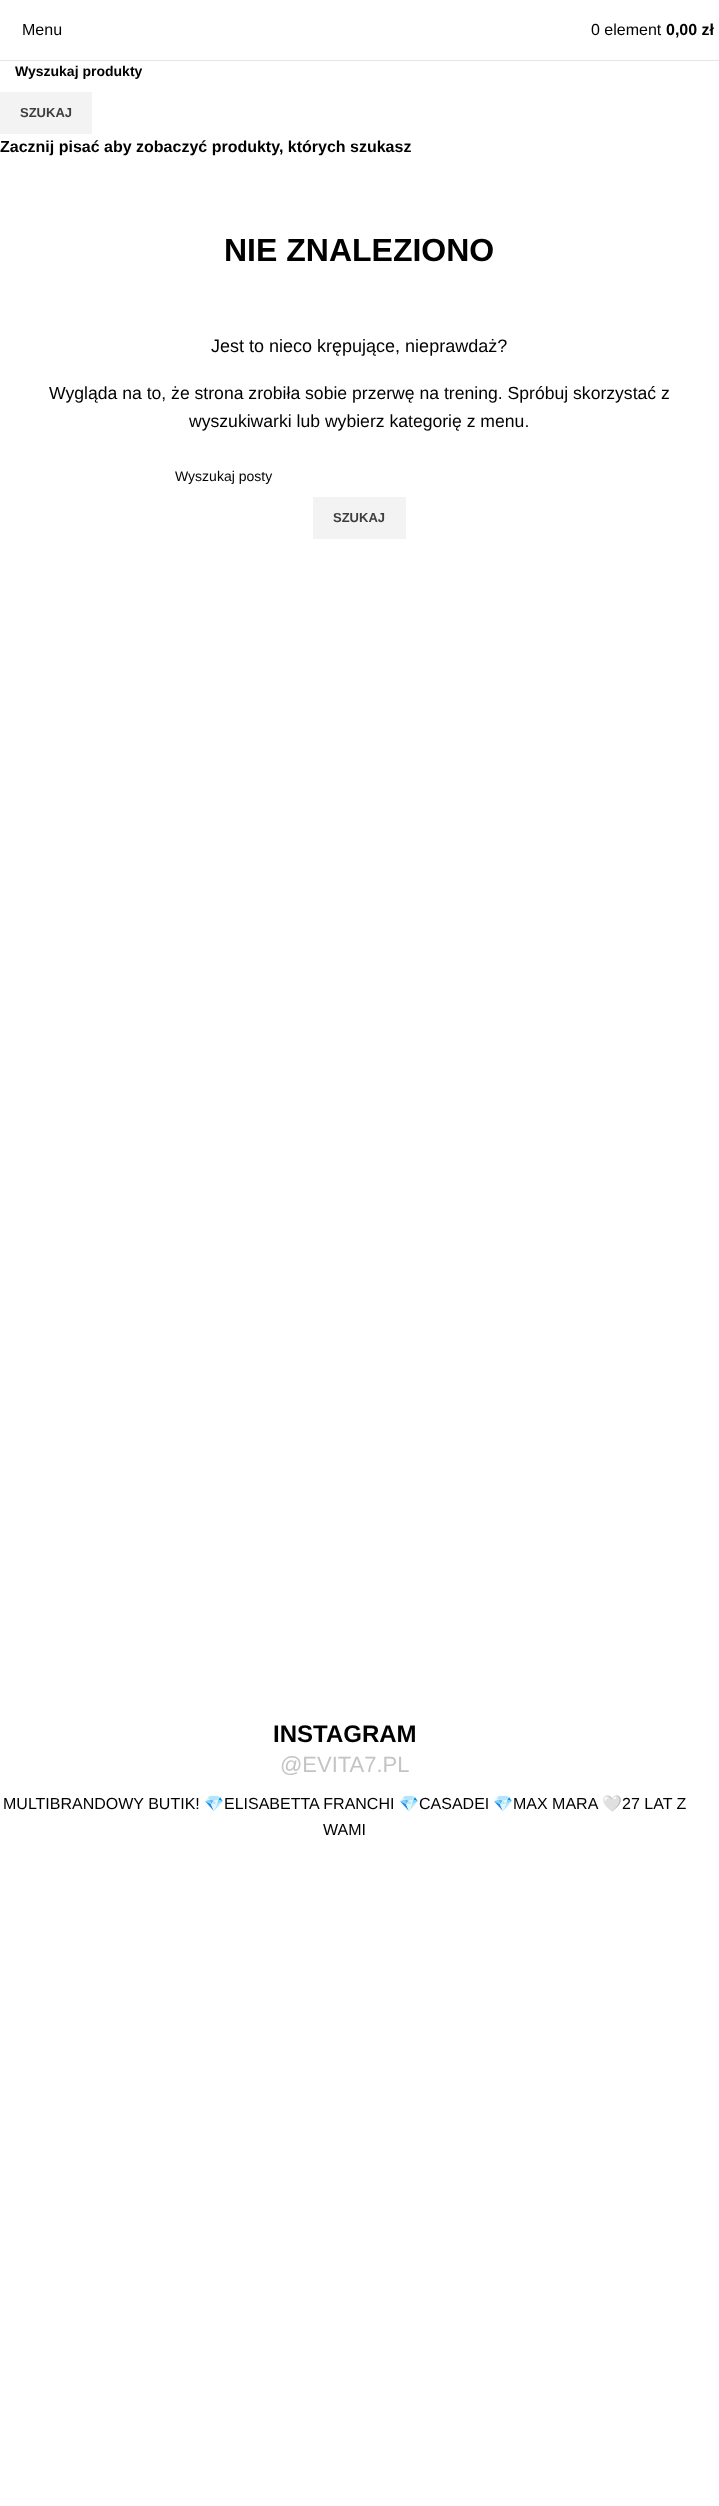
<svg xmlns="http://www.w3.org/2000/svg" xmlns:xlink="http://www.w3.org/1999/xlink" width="719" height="2506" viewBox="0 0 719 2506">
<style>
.cls-1{font:16px Liberation Sans;fill:#000000}
.cls-2{font:bold 16px Liberation Sans;fill:#000000}
.cls-3{font:bold 32px Liberation Sans;fill:#000000}
.cls-4{font:18px Liberation Sans;fill:#000000}
.cls-5{font:17.6px Liberation Sans;fill:#000000}
.cls-6{font:14px Liberation Sans;fill:#000000}
.cls-7{font:bold 13px Liberation Sans;fill:#3e3e3e}
.cls-8{font:bold 24px Liberation Sans;fill:#000000}
.cls-9{font:22px Liberation Sans;fill:#c4c4c4}
.cls-10{font:16px Noto Color Emoji;fill:#000000}
.cls-11{font:bold 14px Liberation Sans;fill:#000000}
</style>
<rect width="100%" height="100%" fill="#ffffff"/>
<rect fill="#e6e6e6" x="0" y="60" width="719" height="1"/>
<rect fill="#f3f3f3" x="313" y="497" width="93" height="42"/>
<rect fill="#f3f3f3" x="0" y="92" width="92" height="42"/>
<text class="cls-1" x="22" y="35">Menu</text>
<text class="cls-1" x="591" y="35">0 element</text>
<text class="cls-2" x="666" y="35">0,00 zł</text>
<text class="cls-3" x="224" y="261">NIE ZNALEZIONO</text>
<text class="cls-4" x="211" y="352">Jest to nieco krępujące, nieprawdaż?</text>
<text class="cls-5" x="49" y="399">Wygląda na to, że strona zrobiła sobie przerwę na trening. Spróbuj skorzystać z</text>
<text class="cls-5" x="189" y="427">wyszukiwarki lub wybierz kategorię z menu.</text>
<text class="cls-6" x="175" y="481">Wyszukaj posty</text>
<text class="cls-7" x="333" y="522">SZUKAJ</text>
<text class="cls-8" x="273" y="1742">INSTAGRAM</text>
<text class="cls-9" x="280" y="1772">@EVITA7.PL</text>
<text class="cls-1" x="3" y="1809">MULTIBRANDOWY BUTIK!</text>
<text class="cls-10" x="204" y="1809">💎</text>
<text class="cls-1" x="224" y="1809">ELISABETTA FRANCHI</text>
<text class="cls-10" x="399" y="1809">💎</text>
<text class="cls-1" x="419" y="1809">CASADEI</text>
<text class="cls-10" x="493" y="1809">💎</text>
<text class="cls-1" x="513" y="1809">MAX MARA</text>
<text class="cls-10" x="602" y="1809">🤍</text>
<text class="cls-1" x="622" y="1809">27 LAT Z</text>
<text class="cls-1" x="323" y="1835">WAMI</text>
<text class="cls-11" x="15" y="76">Wyszukaj produkty</text>
<text class="cls-7" x="20" y="117">SZUKAJ</text>
<text class="cls-2" x="0" y="152">Zacznij pisać aby zobaczyć produkty, których szukasz</text>
</svg>
